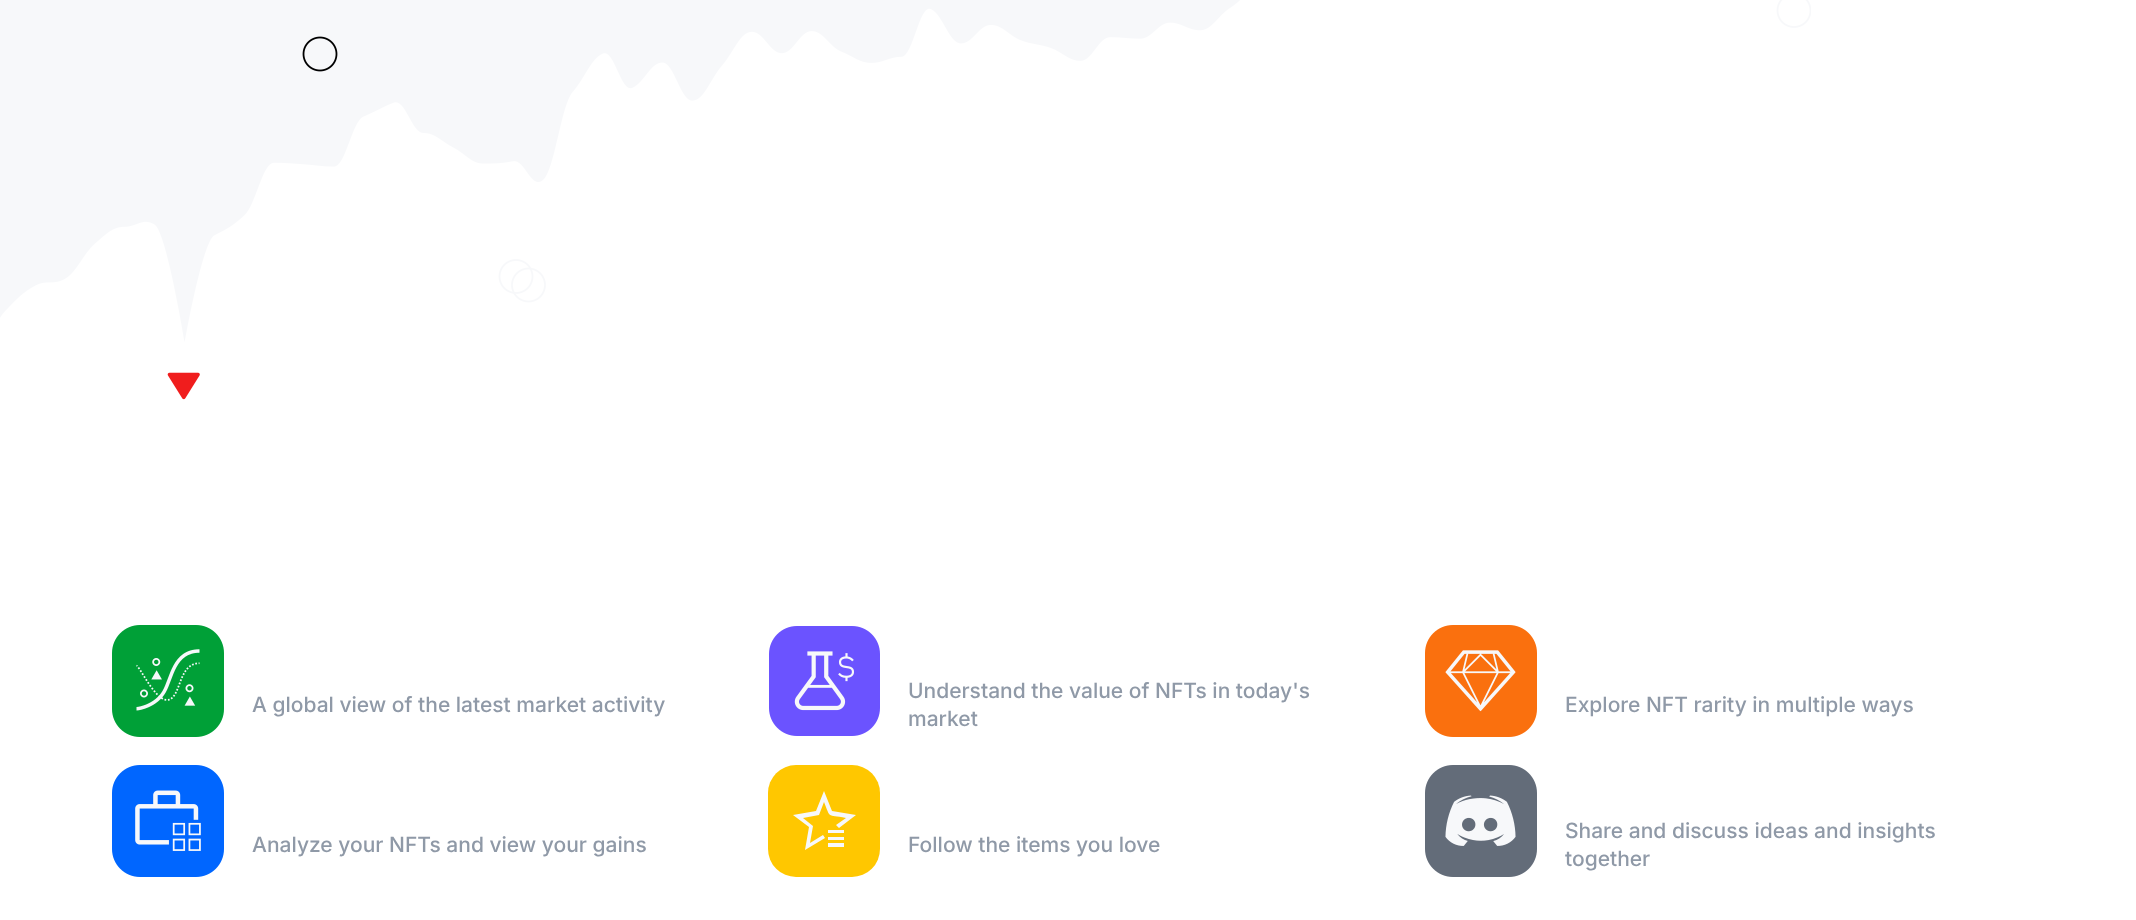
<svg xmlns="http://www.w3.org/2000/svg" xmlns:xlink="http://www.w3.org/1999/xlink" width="2136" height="920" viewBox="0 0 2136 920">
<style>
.cls-1{font:500 21px Inter;fill:#8f99a7}
</style>
<rect width="100%" height="100%" fill="#ffffff"/>
<image xlink:href="image0.png" x="0" y="0" width="1811" height="400"/>
<image xlink:href="image1.png" x="112" y="625" width="112" height="112"/>
<image xlink:href="image2.png" x="769" y="626" width="111" height="110"/>
<image xlink:href="image3.png" x="1425" y="625" width="112" height="112"/>
<image xlink:href="image4.png" x="112" y="765" width="112" height="112"/>
<rect fill="#ffc700" x="768" y="765" width="112" height="112" rx="28"/>
<path fill="#f7f8fa" fill-rule="evenodd" d="M816 811L824 791L826 796L824 797L826 796L832 811L856 815L839 828L836 825L846 818C826 814 831 819 824 802L819 815L803 818L813 826L810 843L823 835L825 838L805 850L809 827L793 815ZM844 830H828V833H844ZM844 840H828V837H844ZM844 843H828V847H844Z"/>
<image xlink:href="image5.png" x="1425" y="765" width="112" height="112"/>
<text class="cls-1" x="252" y="712">A global view of the latest market activity</text>
<text class="cls-1"><tspan x="908" y="698">Understand the value of NFTs in today's</tspan><tspan x="908" y="726">market</tspan></text>
<text class="cls-1" x="1565" y="712">Explore NFT rarity in multiple ways</text>
<text class="cls-1" x="252" y="852">Analyze your NFTs and view your gains</text>
<text class="cls-1" x="908" y="852">Follow the items you love</text>
<text class="cls-1"><tspan x="1565" y="838">Share and discuss ideas and insights</tspan><tspan x="1565" y="866">together</tspan></text>
</svg>
